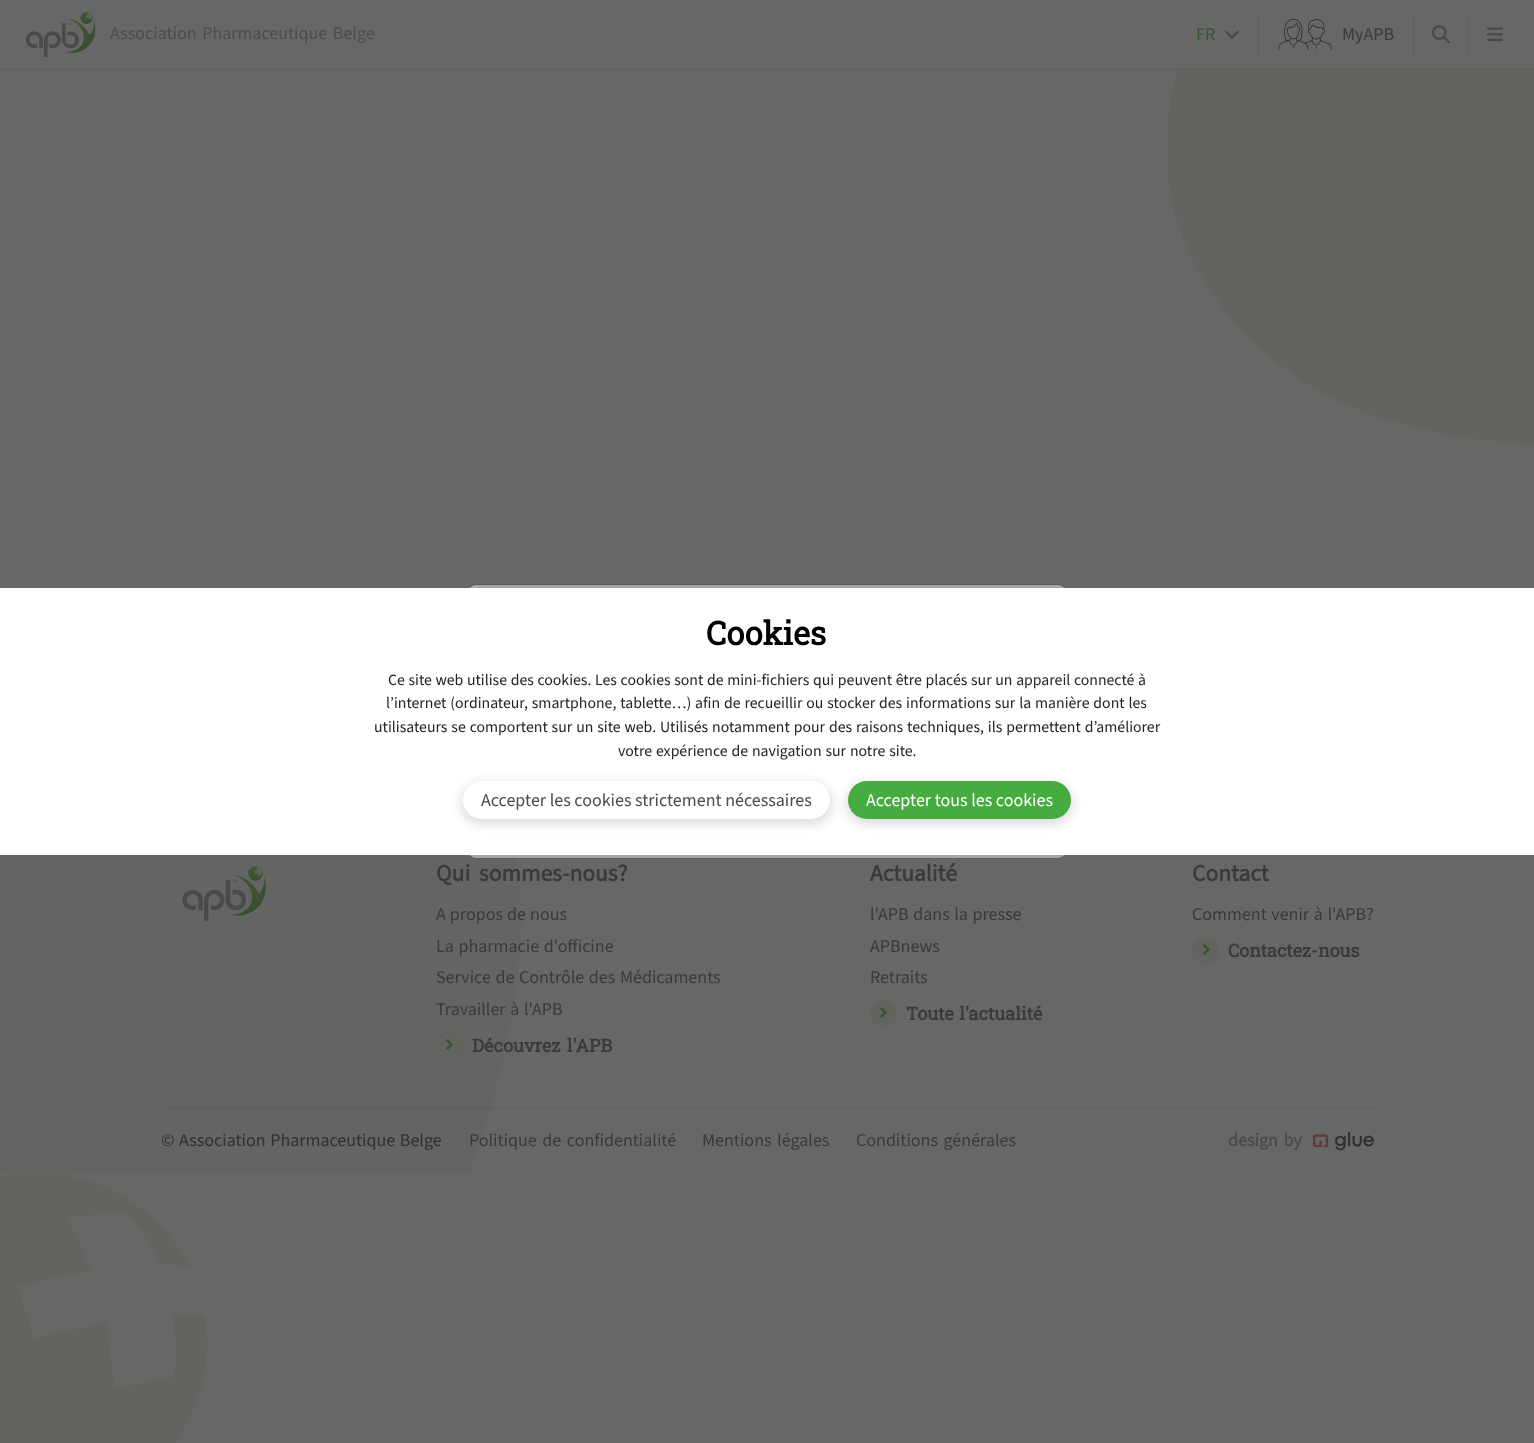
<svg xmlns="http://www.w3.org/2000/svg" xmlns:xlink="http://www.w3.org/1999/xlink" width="1534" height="1443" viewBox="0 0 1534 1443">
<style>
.cls-1{font:18px 'Source Sans 3';fill:#4c4c4c}
.cls-2{font:18px 'Source Sans 3';fill:#395237}
.cls-3{font:18px 'Source Sans 3';fill:#3a3a3a}
.cls-4{font:bold 32.5px Roboto Slab;fill:#000000}
.cls-5{font:15.75px 'Source Sans 3';fill:#232323}
.cls-6{font:18px 'Source Sans 3';fill:#ffffff}
.cls-7{font:bold 23.5px 'Source Sans 3';fill:#3a3a3a}
.cls-8{font:bold 18px Roboto Slab;fill:#3a3a3a}
.cls-9{font:18px 'Source Sans 3';fill:#303030}
.cls-10{font:bold 18px 'Source Sans 3';fill:#4c4c4c}
</style>
<defs>
<clipPath id="clip1"><rect x="1167" y="0" width="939" height="444"/></clipPath>
<clipPath id="clip2"><rect x="0" y="634" width="521" height="540"/></clipPath>
</defs>
<rect width="100%" height="100%" fill="#676767"/>
<g clip-path="url(#clip1)">
<path fill="#62645f" d="M1290 372C1098 227 1160 32 1275-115C1390-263 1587-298 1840-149C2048-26 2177 100 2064 267C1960 421 1483 518 1290 372Z"/>
</g>
<rect fill="#676767" x="1178" y="0" width="356" height="69"/>
<rect fill="#5e5e5e" x="0" y="69" width="1534" height="1"/>
<image xlink:href="image0.png" x="25" y="12" width="71" height="46"/>
<rect fill="#5e5e5e" x="1258" y="13" width="1" height="43"/>
<image xlink:href="image1.png" x="1225" y="30" width="14" height="9"/>
<rect fill="#5e5e5e" x="1413" y="13" width="1" height="43"/>
<image xlink:href="image2.png" x="1278" y="19" width="54" height="31"/>
<rect fill="#5e5e5e" x="1468" y="13" width="1" height="43"/>
<image xlink:href="image3.png" x="1432" y="25" width="18" height="19"/>
<image xlink:href="image4.png" x="1487" y="27" width="16" height="14"/>
<g clip-path="url(#clip2)">
<path fill="#646464" d="M27 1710C-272 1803-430 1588-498 1355C-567 1122-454 887-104 734C184 609 415 569 505 815C588 1042 326 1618 27 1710Z"/>
</g>
<rect fill="#a6a6a6" x="468" y="585" width="598" height="273" rx="8"/>
<rect fill="none" stroke="#272727" stroke-opacity="0.18" x="467.5" y="584.5" width="599" height="274" rx="8.5"/>
<rect fill="#ffffff" x="0" y="588" width="1534" height="267"/>
<rect fill="#4d4d4d" fill-opacity="0.2" filter="blur(5.5px)" x="461" y="783" width="371" height="41" rx="20.5"/>
<rect fill="#ffffff" x="463" y="781" width="367" height="38" rx="19"/>
<rect fill="#4d4d4d" fill-opacity="0.2" filter="blur(5.5px)" x="846" y="783" width="227" height="41" rx="20.5"/>
<rect fill="#47ac40" x="848" y="781" width="223" height="38" rx="19"/>
<image xlink:href="image5.png" x="182" y="866" width="84" height="55"/>
<circle fill="#62645f" cx="449.5" cy="1045.5" r="13.5"/>
<image xlink:href="image6.png" x="445" y="1039" width="9" height="12"/>
<circle fill="#62645f" cx="883.5" cy="1013.5" r="13.5"/>
<image xlink:href="image6.png" x="879" y="1007" width="9" height="12"/>
<circle fill="#62645f" cx="1205.5" cy="950.5" r="13.5"/>
<image xlink:href="image6.png" x="1202" y="944" width="9" height="12"/>
<rect fill="#5e5e5e" x="161" y="1108" width="1213" height="1"/>
<image xlink:href="image7.png" x="1313" y="1134" width="16" height="14"/>
<image xlink:href="image8.png" x="1335" y="1132" width="39" height="19"/>
<image xlink:href="image9.png" x="0" y="1174" width="207" height="269"/>
<text class="cls-1" x="110" y="39" word-spacing="2">Association Pharmaceutique Belge</text>
<text class="cls-2" x="1196" y="40">FR</text>
<text class="cls-3" x="1342" y="40">MyAPB</text>
<text class="cls-4" x="706" y="645">Cookies</text>
<text class="cls-5" x="388" y="685" word-spacing="0.5">Ce site web utilise des cookies. Les cookies sont de mini-fichiers qui peuvent être placés sur un appareil connecté à</text>
<text class="cls-5" x="386" y="708" word-spacing="0.75">l’internet (ordinateur, smartphone, tablette…) afin de recueillir ou stocker des informations sur la manière dont les</text>
<text class="cls-5" x="374" y="732" word-spacing="0.75">utilisateurs se comportent sur un site web. Utilisés notamment pour des raisons techniques, ils permettent d’améliorer</text>
<text class="cls-5" x="618" y="756" word-spacing="0.75">votre expérience de navigation sur notre site.</text>
<text class="cls-1" x="481" y="806">Accepter les cookies strictement nécessaires</text>
<text class="cls-6" x="866" y="806">Accepter tous les cookies</text>
<text class="cls-7" x="436" y="881" word-spacing="4">Qui sommes-nous?</text>
<text class="cls-3"><tspan x="436" y="920" word-spacing="0.5">A propos de nous</tspan><tspan x="436" y="952" word-spacing="1">La pharmacie d'officine</tspan><tspan x="436" y="983" word-spacing="1">Service de Contrôle des Médicaments</tspan><tspan x="436" y="1015" word-spacing="1">Travailler à l'APB</tspan></text>
<text class="cls-8" x="472" y="1052" word-spacing="2">Découvrez l'APB</text>
<text class="cls-7" x="870" y="881">Actualité</text>
<text class="cls-3"><tspan x="870" y="920" word-spacing="1">l'APB dans la presse</tspan><tspan x="870" y="952">APBnews</tspan><tspan x="870" y="983">Retraits</tspan></text>
<text class="cls-8" x="906" y="1020" word-spacing="1">Toute l'actualité</text>
<text class="cls-7" x="1192" y="881">Contact</text>
<text class="cls-3" x="1192" y="920" word-spacing="1">Comment venir à l'APB?</text>
<text class="cls-8" x="1228" y="957">Contactez-nous</text>
<text class="cls-9" x="161" y="1146" word-spacing="1">© Association Pharmaceutique Belge</text>
<text class="cls-3" x="469" y="1146" word-spacing="2">Politique de confidentialité</text>
<text class="cls-3" x="702" y="1146" word-spacing="2">Mentions légales</text>
<text class="cls-3" x="856" y="1146" word-spacing="2">Conditions générales</text>
<text class="cls-10" x="1228" y="1146" word-spacing="2">design by</text>
</svg>
